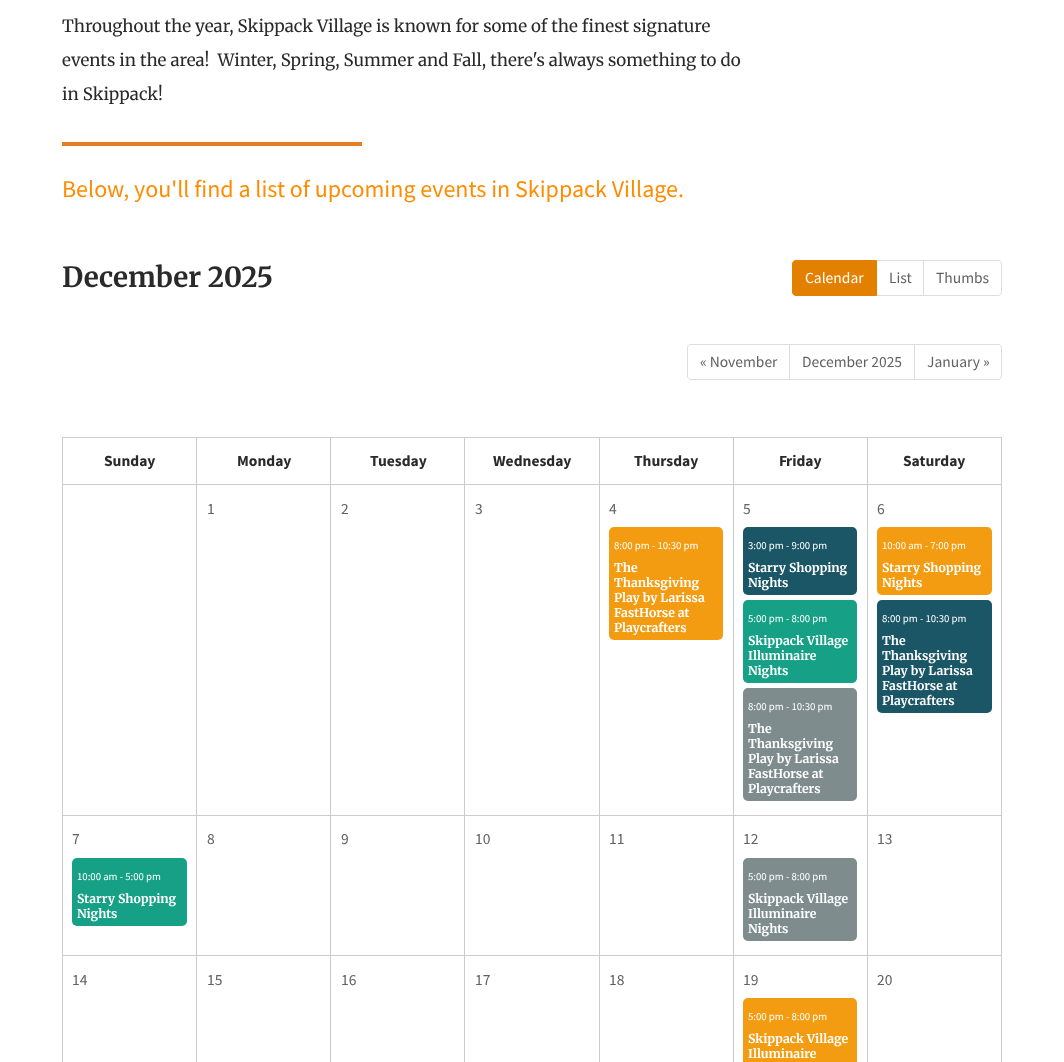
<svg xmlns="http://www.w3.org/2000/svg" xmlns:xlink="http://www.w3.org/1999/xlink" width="1064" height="1062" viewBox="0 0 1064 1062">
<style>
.cls-1{font:16.95px Merriweather;fill:#2b2a2a}
.cls-2{font:24px Source Sans Pro;fill:#ff8c00}
.cls-3{font:bold 27.75px Merriweather;fill:#2b2a2a}
.cls-4{font:15.5px Source Sans Pro;fill:#ffffff}
.cls-5{font:15.5px Source Sans Pro;fill:#616161}
.cls-6{font:bold 15.5px Source Sans Pro;fill:#2b2a2a}
.cls-7{font:10.75px Source Sans Pro;fill:#ffffff}
.cls-8{font:bold 12.25px Merriweather;fill:#ffffff}
</style>
<rect width="100%" height="100%" fill="#ffffff"/>
<rect fill="#e67e22" x="62" y="142" width="300" height="4"/>
<rect fill="none" stroke="#dddddd" x="876.5" y="260.5" width="47" height="35"/>
<path fill="#e38000" stroke="#e38000" d="M796 260.5H876.5V295.5H796C794 295.5 792.5 294 792.5 292V264C792.5 262 794 260.5 796 260.5Z"/>
<path fill="#ffffff" stroke="#dddddd" d="M923.5 260.5H998C1000 260.5 1001.5 262 1001.5 264V292C1001.5 294 1000 295.5 998 295.5H923.5Z"/>
<path fill="none" stroke="#dddddd" d="M691 344.5H789.5V379.5H691C689 379.5 687.5 378 687.5 376V348C687.5 346 689 344.5 691 344.5Z"/>
<rect fill="none" stroke="#dddddd" x="789.5" y="344.5" width="125" height="35"/>
<path fill="#ffffff" stroke="#dddddd" d="M914.5 344.5H998C1000 344.5 1001.5 346 1001.5 348V376C1001.5 378 1000 379.5 998 379.5H914.5Z"/>
<rect fill="#cccccc" x="867" y="437" width="135" height="1"/>
<rect fill="#cccccc" x="867" y="484" width="135" height="1"/>
<rect fill="#cccccc" x="867" y="815" width="135" height="1"/>
<rect fill="#cccccc" x="867" y="955" width="135" height="1"/>
<rect fill="#cccccc" x="867" y="955" width="1" height="107"/>
<rect fill="#cccccc" x="733" y="955" width="135" height="1"/>
<rect fill="#cccccc" x="867" y="815" width="1" height="141"/>
<rect fill="#cccccc" x="733" y="815" width="135" height="1"/>
<rect fill="#cccccc" x="867" y="484" width="1" height="332"/>
<rect fill="#cccccc" x="733" y="484" width="135" height="1"/>
<rect fill="#cccccc" x="867" y="437" width="1" height="48"/>
<rect fill="#cccccc" x="733" y="437" width="135" height="1"/>
<rect fill="#cccccc" x="733" y="955" width="1" height="107"/>
<rect fill="#cccccc" x="599" y="955" width="135" height="1"/>
<rect fill="#cccccc" x="733" y="815" width="1" height="141"/>
<rect fill="#cccccc" x="599" y="815" width="135" height="1"/>
<rect fill="#cccccc" x="733" y="484" width="1" height="332"/>
<rect fill="#cccccc" x="599" y="484" width="135" height="1"/>
<rect fill="#cccccc" x="733" y="437" width="1" height="48"/>
<rect fill="#cccccc" x="599" y="437" width="135" height="1"/>
<rect fill="#cccccc" x="599" y="955" width="1" height="107"/>
<rect fill="#cccccc" x="464" y="955" width="136" height="1"/>
<rect fill="#cccccc" x="599" y="815" width="1" height="141"/>
<rect fill="#cccccc" x="464" y="815" width="136" height="1"/>
<rect fill="#cccccc" x="599" y="484" width="1" height="332"/>
<rect fill="#cccccc" x="464" y="484" width="136" height="1"/>
<rect fill="#cccccc" x="599" y="437" width="1" height="48"/>
<rect fill="#cccccc" x="464" y="437" width="136" height="1"/>
<rect fill="#cccccc" x="464" y="955" width="1" height="107"/>
<rect fill="#cccccc" x="330" y="955" width="135" height="1"/>
<rect fill="#cccccc" x="464" y="815" width="1" height="141"/>
<rect fill="#cccccc" x="330" y="815" width="135" height="1"/>
<rect fill="#cccccc" x="464" y="484" width="1" height="332"/>
<rect fill="#cccccc" x="330" y="484" width="135" height="1"/>
<rect fill="#cccccc" x="464" y="437" width="1" height="48"/>
<rect fill="#cccccc" x="330" y="437" width="135" height="1"/>
<rect fill="#cccccc" x="330" y="955" width="1" height="107"/>
<rect fill="#cccccc" x="196" y="955" width="135" height="1"/>
<rect fill="#cccccc" x="330" y="815" width="1" height="141"/>
<rect fill="#cccccc" x="196" y="815" width="135" height="1"/>
<rect fill="#cccccc" x="330" y="484" width="1" height="332"/>
<rect fill="#cccccc" x="196" y="484" width="135" height="1"/>
<rect fill="#cccccc" x="330" y="437" width="1" height="48"/>
<rect fill="#cccccc" x="196" y="437" width="135" height="1"/>
<rect fill="#cccccc" x="196" y="955" width="1" height="107"/>
<rect fill="#cccccc" x="62" y="955" width="135" height="1"/>
<rect fill="#cccccc" x="196" y="815" width="1" height="141"/>
<rect fill="#cccccc" x="62" y="815" width="135" height="1"/>
<rect fill="#cccccc" x="196" y="484" width="1" height="332"/>
<rect fill="#cccccc" x="62" y="484" width="135" height="1"/>
<rect fill="#cccccc" x="196" y="437" width="1" height="48"/>
<rect fill="#cccccc" x="62" y="437" width="135" height="1"/>
<rect fill="#cccccc" x="62" y="955" width="1" height="107"/>
<rect fill="#cccccc" x="62" y="815" width="1" height="141"/>
<rect fill="#cccccc" x="62" y="484" width="1" height="332"/>
<rect fill="#cccccc" x="62" y="437" width="1" height="48"/>
<rect fill="#cccccc" x="1001" y="955" width="1" height="107"/>
<rect fill="#cccccc" x="1001" y="815" width="1" height="141"/>
<rect fill="#cccccc" x="1001" y="484" width="1" height="332"/>
<rect fill="#cccccc" x="1001" y="437" width="1" height="48"/>
<rect fill="#f39c12" x="609" y="527" width="114" height="113" rx="5"/>
<rect fill="#1b5666" x="743" y="527" width="114" height="68" rx="5"/>
<rect fill="#16a085" x="743" y="600" width="114" height="83" rx="5"/>
<rect fill="#7f8c8d" x="743" y="688" width="114" height="113" rx="5"/>
<rect fill="#f39c12" x="877" y="527" width="115" height="68" rx="5"/>
<rect fill="#1b5666" x="877" y="600" width="115" height="113" rx="5"/>
<rect fill="#16a085" x="72" y="858" width="115" height="68" rx="5"/>
<rect fill="#7f8c8d" x="743" y="858" width="114" height="83" rx="5"/>
<rect fill="#f39c12" x="743" y="998" width="114" height="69" rx="5"/>
<text class="cls-1" x="62" y="32">Throughout the year, Skippack Village is known for some of the finest signature</text>
<text class="cls-1" xml:space="preserve" x="62" y="66">events in the area!  Winter, Spring, Summer and Fall, there's always something to do</text>
<text class="cls-1" x="62" y="100">in Skippack!</text>
<text class="cls-2" x="62" y="197">Below, you'll find a list of upcoming events in Skippack Village.</text>
<text class="cls-3" x="62" y="287">December 2025</text>
<text class="cls-4" x="805" y="283">Calendar</text>
<text class="cls-5" x="889" y="283">List</text>
<text class="cls-5" x="936" y="283">Thumbs</text>
<text class="cls-5" x="700" y="367">« November</text>
<text class="cls-5" x="802" y="367">December 2025</text>
<text class="cls-5" x="927" y="367">January »</text>
<text class="cls-6" x="104" y="466">Sunday</text>
<text class="cls-6" x="237" y="466">Monday</text>
<text class="cls-6" x="370" y="466">T</text>
<text class="cls-6" x="378" y="466">uesday</text>
<text class="cls-6" x="493" y="466">Wednesday</text>
<text class="cls-6" x="634" y="466">Thursday</text>
<text class="cls-6" x="779" y="466">F</text>
<text class="cls-6" x="786" y="466">riday</text>
<text class="cls-6" x="903" y="466">Saturday</text>
<text class="cls-5" x="207" y="514">1</text>
<text class="cls-5" x="341" y="514">2</text>
<text class="cls-5" x="475" y="514">3</text>
<text class="cls-5" x="609" y="514">4</text>
<text class="cls-7" x="614" y="549">8:00 pm - 10:30 pm</text>
<text class="cls-8"><tspan x="614" y="572">The</tspan><tspan x="614" y="587">Thanksgiving</tspan><tspan x="614" y="602">Play by Larissa</tspan><tspan x="614" y="617">FastHorse at</tspan><tspan x="614" y="632">Playcrafters</tspan></text>
<text class="cls-5" x="743" y="514">5</text>
<text class="cls-7" x="748" y="549">3:00 pm - 9:00 pm</text>
<text class="cls-8"><tspan x="748" y="572">Starry Shopping</tspan><tspan x="748" y="587">Nights</tspan></text>
<text class="cls-7" x="748" y="622">5:00 pm - 8:00 pm</text>
<text class="cls-8"><tspan x="748" y="645">Skippack Village</tspan><tspan x="748" y="660">Illuminaire</tspan><tspan x="748" y="675">Nights</tspan></text>
<text class="cls-7" x="748" y="710">8:00 pm - 10:30 pm</text>
<text class="cls-8"><tspan x="748" y="733">The</tspan><tspan x="748" y="748">Thanksgiving</tspan><tspan x="748" y="763">Play by Larissa</tspan><tspan x="748" y="778">FastHorse at</tspan><tspan x="748" y="793">Playcrafters</tspan></text>
<text class="cls-5" x="877" y="514">6</text>
<text class="cls-7" x="882" y="549">10:00 am - 7:00 pm</text>
<text class="cls-8"><tspan x="882" y="572">Starry Shopping</tspan><tspan x="882" y="587">Nights</tspan></text>
<text class="cls-7" x="882" y="622">8:00 pm - 10:30 pm</text>
<text class="cls-8"><tspan x="882" y="645">The</tspan><tspan x="882" y="660">Thanksgiving</tspan><tspan x="882" y="675">Play by Larissa</tspan><tspan x="882" y="690">FastHorse at</tspan><tspan x="882" y="705">Playcrafters</tspan></text>
<text class="cls-5" x="72" y="844">7</text>
<text class="cls-7" x="77" y="880">10:00 am - 5:00 pm</text>
<text class="cls-8"><tspan x="77" y="903">Starry Shopping</tspan><tspan x="77" y="918">Nights</tspan></text>
<text class="cls-5" x="207" y="844">8</text>
<text class="cls-5" x="341" y="844">9</text>
<text class="cls-5" x="475" y="844">10</text>
<text class="cls-5" x="609" y="844">11</text>
<text class="cls-5" x="743" y="844">12</text>
<text class="cls-7" x="748" y="880">5:00 pm - 8:00 pm</text>
<text class="cls-8"><tspan x="748" y="903">Skippack Village</tspan><tspan x="748" y="918">Illuminaire</tspan><tspan x="748" y="933">Nights</tspan></text>
<text class="cls-5" x="877" y="844">13</text>
<text class="cls-5" x="72" y="985">14</text>
<text class="cls-5" x="207" y="985">15</text>
<text class="cls-5" x="341" y="985">16</text>
<text class="cls-5" x="475" y="985">17</text>
<text class="cls-5" x="609" y="985">18</text>
<text class="cls-5" x="743" y="985">19</text>
<text class="cls-7" x="748" y="1020">5:00 pm - 8:00 pm</text>
<text class="cls-8"><tspan x="748" y="1043">Skippack Village</tspan><tspan x="748" y="1058">Illuminaire</tspan></text>
<text class="cls-5" x="877" y="985">20</text>
</svg>
